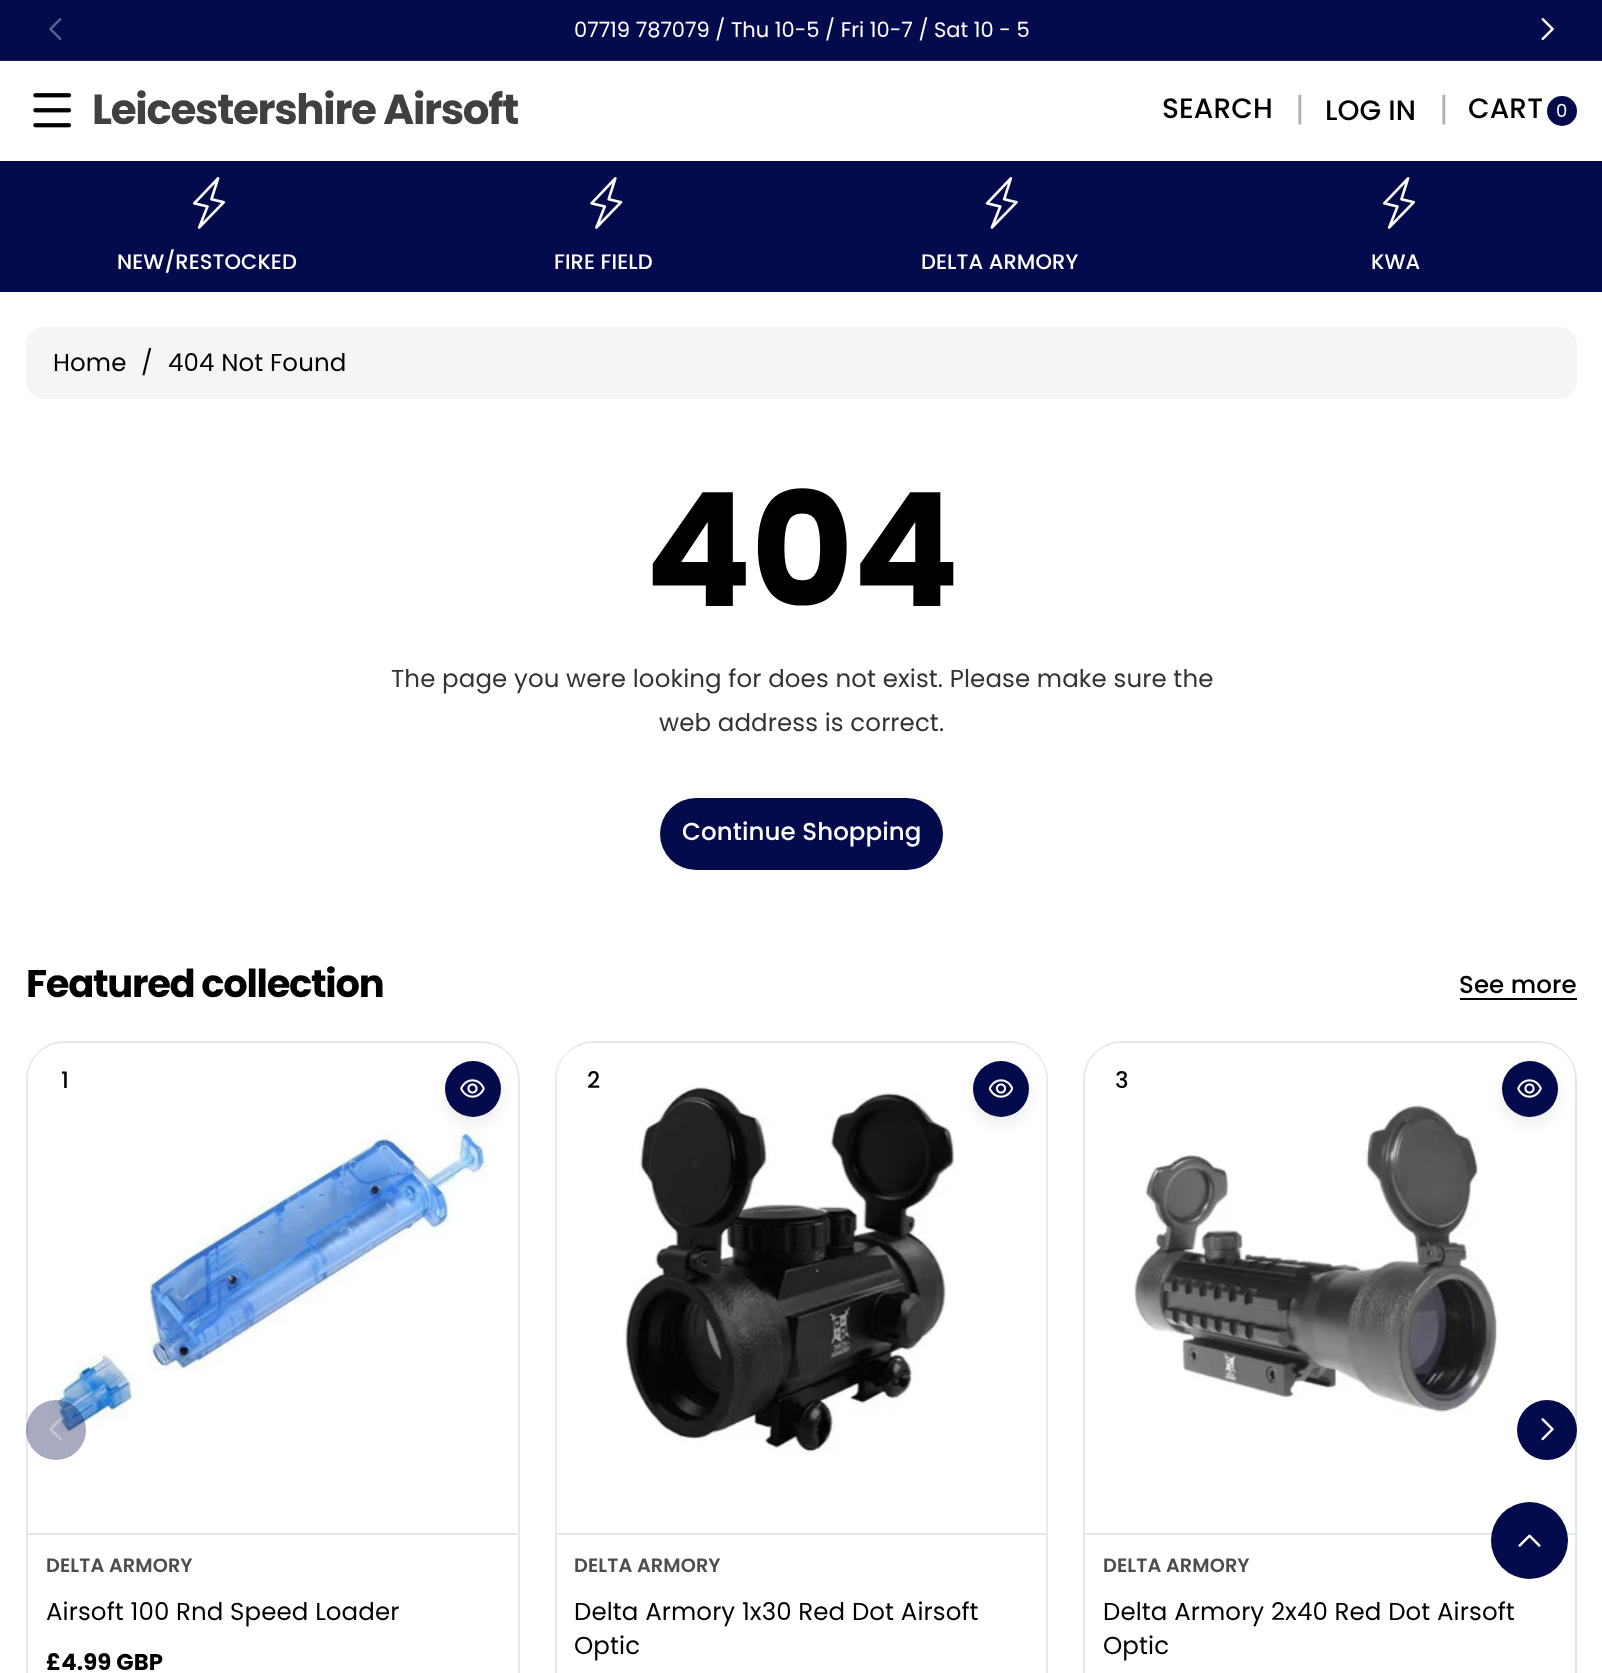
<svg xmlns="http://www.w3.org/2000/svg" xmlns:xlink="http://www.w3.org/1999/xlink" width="1602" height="1673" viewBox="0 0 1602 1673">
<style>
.cls-1{font:21px Poppins;fill:#ffffff}
.cls-2{font:bold 42px Poppins;letter-spacing:-1.3px;fill:#404040}
.cls-3{font:500 28px Poppins;letter-spacing:0.1px;fill:#000000}
.cls-4{font:33px Poppins;letter-spacing:0.1px;fill:#b3b3b3}
.cls-5{font:500 28px Poppins;fill:#000000}
.cls-6{font:18px Poppins;letter-spacing:0.1px;fill:#ffffff}
.cls-7{font:500 21px Poppins;letter-spacing:0.1px;fill:#ffffff}
.cls-8{font:24.5px Poppins;letter-spacing:0.1px;fill:#000000}
.cls-9{font:bold 158px Poppins;letter-spacing:-1.3px;fill:#000000}
.cls-10{font:24.5px Poppins;letter-spacing:0.1px;fill:#333333}
.cls-11{font:500 24.5px Poppins;letter-spacing:0.1px;fill:#ffffff}
.cls-12{font:bold 38.5px Poppins;letter-spacing:-1.3px;fill:#000000}
.cls-13{font:500 24.5px Poppins;letter-spacing:0.1px;fill:#000000}
.cls-14{font:500 22.75px Poppins;letter-spacing:0.1px;fill:#000000}
.cls-15{font:600 19.25px Poppins;letter-spacing:0.1px;fill:#4d4d4d}
.cls-16{font:bold 22.75px Poppins;letter-spacing:0.1px;fill:#000000}
</style>
<rect width="100%" height="100%" fill="#ffffff"/>
<rect fill="#030b4c" x="0" y="0" width="1602" height="60"/>
<rect fill="#171f5a" x="0" y="60" width="1602" height="1"/>
<image xlink:href="image0.png" x="49" y="18" width="13" height="22"/>
<image xlink:href="image1.png" x="1541" y="18" width="13" height="22"/>
<image xlink:href="image2.png" x="33" y="93" width="39" height="35"/>
<circle fill="#030b4c" cx="1562" cy="111" r="15"/>
<rect fill="#030b4c" x="0" y="161" width="1602" height="131"/>
<image xlink:href="image3.png" x="193" y="177" width="32" height="52"/>
<image xlink:href="image4.png" x="590" y="177" width="33" height="52"/>
<image xlink:href="image5.png" x="985" y="177" width="33" height="52"/>
<image xlink:href="image3.png" x="1383" y="177" width="32" height="52"/>
<rect fill="#f5f5f5" x="26" y="327" width="1551" height="72" rx="18"/>
<rect fill="#030b4c" x="660" y="798" width="283" height="72" rx="36"/>
<rect fill="#000000" x="1460" y="998" width="117" height="2"/>
<rect fill="none" stroke="#e4e7ec" stroke-width="2" x="27" y="1042" width="492" height="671" rx="38"/>
<rect fill="#e4e7ec" x="28" y="1533" width="490" height="2"/>
<image xlink:href="image6.png" x="28" y="1043" width="490" height="391"/>
<rect fill="#000000" fill-opacity="0.08" filter="blur(7px)" x="445" y="1068" width="56" height="56" rx="28"/>
<circle fill="#030b4c" cx="473" cy="1089" r="28"/>
<image xlink:href="image7.png" x="460" y="1079" width="25" height="19"/>
<rect fill="none" stroke="#e4e7ec" stroke-width="2" x="556" y="1042" width="491" height="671" rx="38"/>
<rect fill="#e4e7ec" x="557" y="1533" width="490" height="2"/>
<image xlink:href="image8.png" x="556" y="1043" width="491" height="490"/>
<rect fill="#000000" fill-opacity="0.08" filter="blur(7px)" x="973" y="1068" width="56" height="56" rx="28"/>
<circle fill="#030b4c" cx="1001" cy="1089" r="28"/>
<image xlink:href="image9.png" x="989" y="1079" width="24" height="19"/>
<rect fill="none" stroke="#e4e7ec" stroke-width="2" x="1084" y="1042" width="492" height="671" rx="38"/>
<rect fill="#e4e7ec" x="1085" y="1533" width="490" height="2"/>
<image xlink:href="image10.png" x="1085" y="1043" width="490" height="371"/>
<rect fill="#000000" fill-opacity="0.08" filter="blur(7px)" x="1502" y="1068" width="56" height="56" rx="28"/>
<circle fill="#030b4c" cx="1530" cy="1089" r="28"/>
<image xlink:href="image7.png" x="1517" y="1079" width="25" height="19"/>
<circle fill="#030b4c" fill-opacity="0.35" cx="56" cy="1430" r="30"/>
<image xlink:href="image11.png" x="49" y="1418" width="13" height="23"/>
<circle fill="#030b4c" cx="1547" cy="1430" r="30"/>
<image xlink:href="image12.png" x="1541" y="1418" width="13" height="23"/>
<circle fill="#030b4c" cx="1529.5" cy="1540.5" r="38.5"/>
<image xlink:href="image13.png" x="1518" y="1534" width="23" height="13"/>
<text class="cls-1" x="574" y="37">07719 787079 / Thu 10-5 / Fri 10-7 / Sat 10 - 5</text>
<text class="cls-2" x="92" y="124">Leicestershire Airsoft</text>
<text class="cls-3" x="1162" y="118">SEARCH</text>
<text class="cls-4" x="1295" y="121">|</text>
<text class="cls-5" x="1325" y="120">LOG IN</text>
<text class="cls-4" x="1439" y="121">|</text>
<text class="cls-3" x="1468" y="118">CART</text>
<text class="cls-6" x="1556" y="117">0</text>
<text class="cls-7" x="117" y="269">NEW/RESTOCKED</text>
<text class="cls-7" x="554" y="269">FIRE FIELD</text>
<text class="cls-7" x="921" y="269">DELTA ARMORY</text>
<text class="cls-7" x="1371" y="269">KWA</text>
<text class="cls-8" x="53" y="371">Home</text>
<text class="cls-8" x="141" y="371">/</text>
<text class="cls-8" x="168" y="371">404 Not Found</text>
<text class="cls-9" x="645" y="606">404</text>
<text class="cls-10" x="391" y="687">The page you were looking for does not exist. Please make sure the</text>
<text class="cls-10" x="659" y="731">web address is correct.</text>
<text class="cls-11" x="682" y="840">Continue Shopping</text>
<text class="cls-12" x="26" y="997">Featured collection</text>
<text class="cls-13" x="1459" y="993">See more</text>
<text class="cls-14" x="61" y="1088">1</text>
<text class="cls-15" x="46" y="1572">DELTA ARMORY</text>
<text class="cls-8" x="46" y="1620">Airsoft 100 Rnd Speed Loader</text>
<text class="cls-16" x="46" y="1670">£4.99 GBP</text>
<text class="cls-14" x="587" y="1088">2</text>
<text class="cls-15" x="574" y="1572">DELTA ARMORY</text>
<text class="cls-8"><tspan x="574" y="1620">Delta Armory 1x30 Red Dot Airsoft</tspan><tspan x="574" y="1654">Optic</tspan></text>
<text class="cls-14" x="1115" y="1088">3</text>
<text class="cls-15" x="1103" y="1572">DELTA ARMORY</text>
<text class="cls-8"><tspan x="1103" y="1620">Delta Armory 2x40 Red Dot Airsoft</tspan><tspan x="1103" y="1654">Optic</tspan></text>
</svg>
